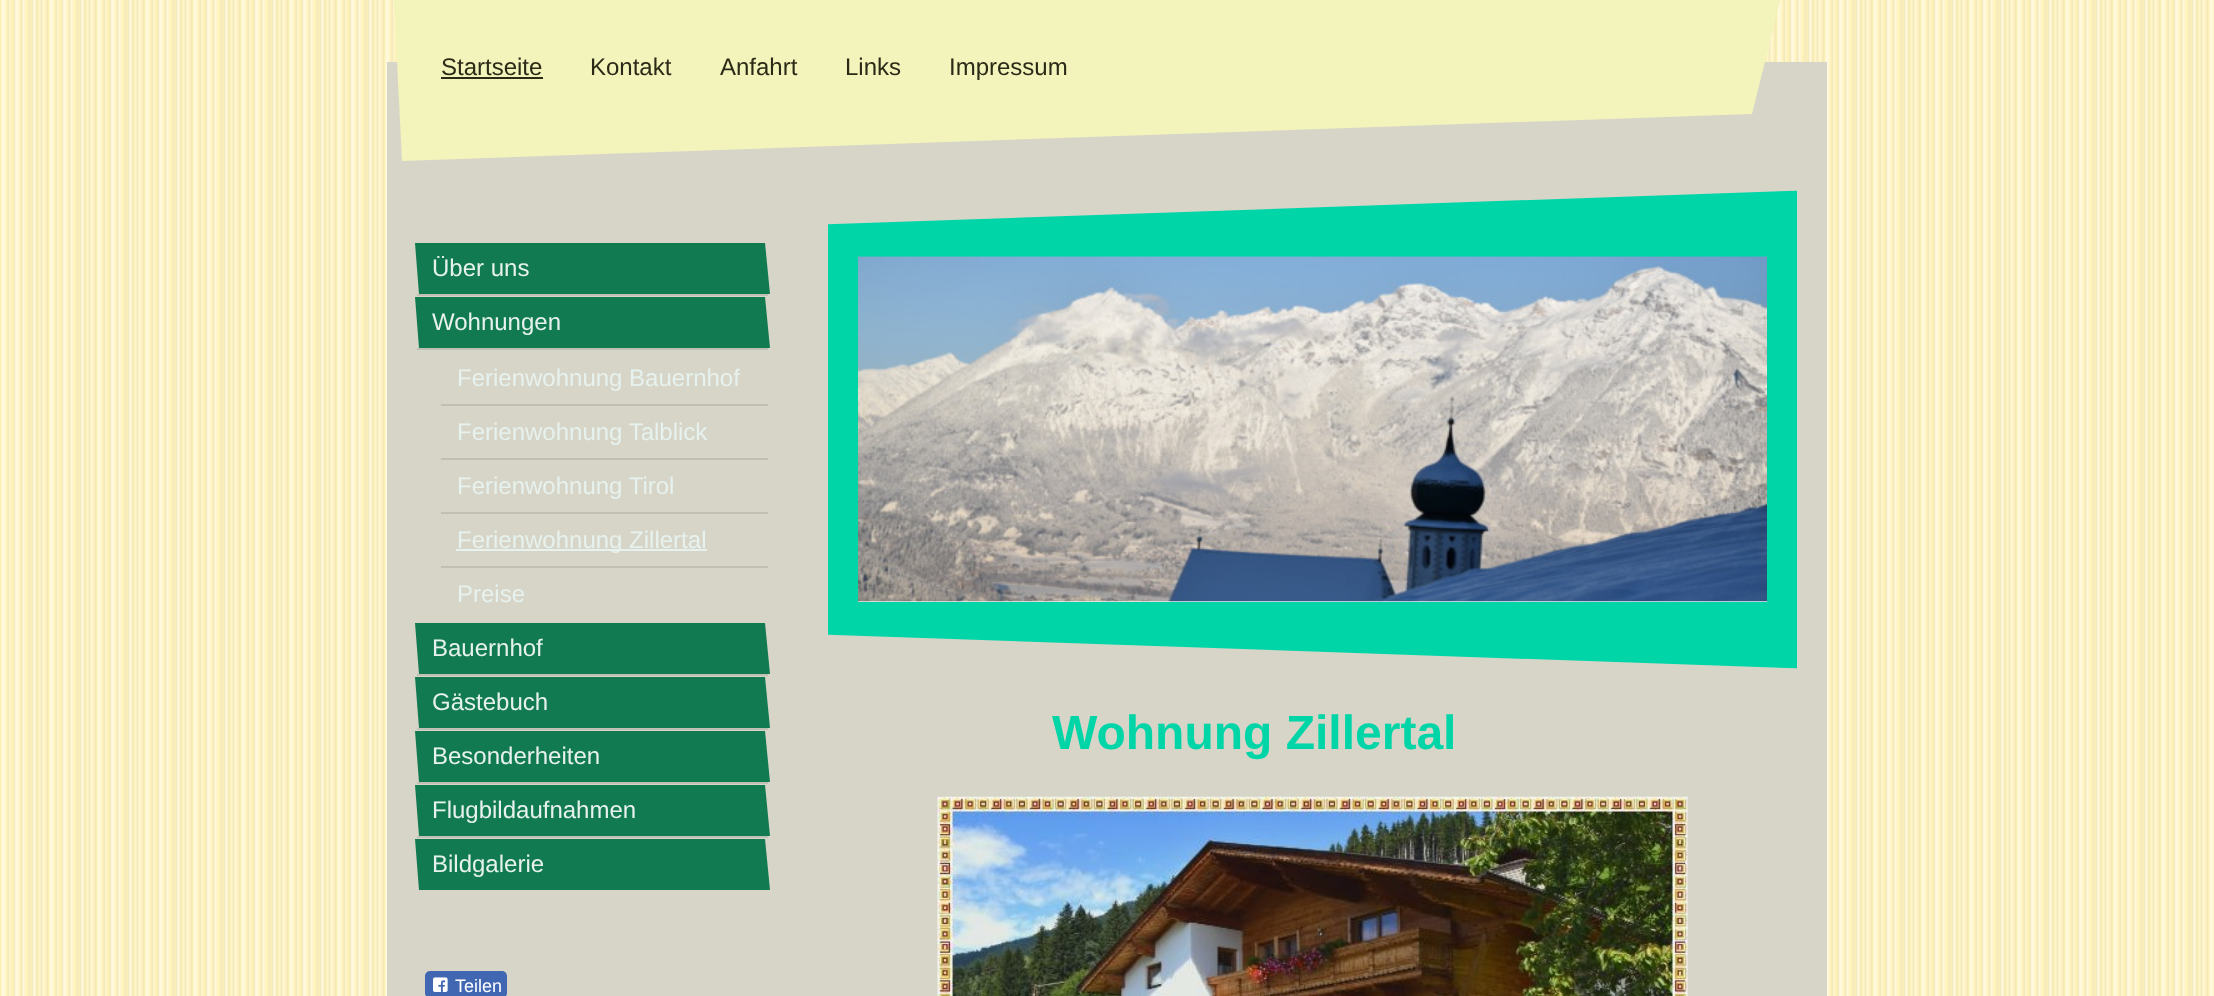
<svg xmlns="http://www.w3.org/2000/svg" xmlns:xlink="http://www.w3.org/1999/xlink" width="2214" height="996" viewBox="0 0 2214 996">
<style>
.cls-1{font:24px Liberation Sans;fill:#2a2a16}
.cls-2{font:24px Liberation Sans;fill:#e7f2ee}
.cls-3{font:18px Liberation Sans;fill:#ffffff}
.cls-4{font:bold 48px Liberation Sans;fill:#00d5a8}
</style>
<defs>
<clipPath id="clip1"><rect x="828" y="182" width="969" height="495"/></clipPath>
</defs>
<rect width="100%" height="100%" fill="#ffffff"/>
<image xlink:href="image0.png" x="0" y="0" width="2214" height="996"/>
<rect fill="#d6d5c8" x="387" y="62" width="1440" height="934"/>
<path fill="#f3f3bc" d="M387-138L1827-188L1752 114L402 161Z"/>
<rect fill="#2a2a16" x="441" y="77" width="102" height="2"/>
<rect fill="#c1c0b4" x="417" y="294" width="351" height="2"/>
<path fill="#117a50" d="M415 243H765L770 294H419Z"/>
<rect fill="#c1c0b4" x="417" y="348" width="351" height="2"/>
<path fill="#117a50" d="M415 297H765L770 348H419Z"/>
<rect fill="#c1c0b4" x="441" y="404" width="327" height="2"/>
<rect fill="#c1c0b4" x="441" y="458" width="327" height="2"/>
<rect fill="#c1c0b4" x="441" y="512" width="327" height="2"/>
<rect fill="#c1c0b4" x="441" y="566" width="327" height="2"/>
<rect fill="#e7f2ee" x="456" y="549" width="251" height="2"/>
<rect fill="#c1c0b4" x="417" y="674" width="351" height="2"/>
<path fill="#117a50" d="M415 623H765L770 674H419Z"/>
<rect fill="#c1c0b4" x="417" y="728" width="351" height="2"/>
<path fill="#117a50" d="M415 677H765L770 728H419Z"/>
<rect fill="#c1c0b4" x="417" y="782" width="351" height="2"/>
<path fill="#117a50" d="M415 731H765L770 782H419Z"/>
<rect fill="#c1c0b4" x="417" y="836" width="351" height="2"/>
<path fill="#117a50" d="M415 785H765L770 836H419Z"/>
<path fill="#117a50" d="M415 839H765L770 890H419Z"/>
<rect fill="#4267b2" x="425" y="971" width="82" height="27" rx="5"/>
<image xlink:href="image1.png" x="433" y="977" width="15" height="15"/>
<rect fill="#00d5a8" x="828" y="190" width="969" height="479"/>
<g clip-path="url(#clip1)">
<path fill="#d6d5c8" d="M778 160L1844 123L1846 189L780 226Z"/>
</g>
<image xlink:href="image2.png" x="858" y="256" width="909" height="1"/>
<rect fill="#eeeeee" x="858" y="601" width="909" height="1"/>
<image xlink:href="image3.png" x="858" y="256" width="909" height="346"/>
<g clip-path="url(#clip1)">
<path fill="#d6d5c8" d="M780 633L1846 670L1844 736L778 699Z"/>
</g>
<image xlink:href="image4.png" x="937" y="796" width="751" height="200"/>
<text class="cls-1" x="441" y="75">Startseite</text>
<text class="cls-1" x="590" y="75">Kontakt</text>
<text class="cls-1" x="720" y="75">Anfahrt</text>
<text class="cls-1" x="845" y="75">Links</text>
<text class="cls-1" x="949" y="75">Impressum</text>
<text class="cls-2" x="432" y="276">Über uns</text>
<text class="cls-2" x="432" y="330">Wohnungen</text>
<text class="cls-2" x="457" y="386">Ferienwohnung Bauernhof</text>
<text class="cls-2" x="457" y="440">Ferienwohnung Talblick</text>
<text class="cls-2" x="457" y="494">Ferienwohnung Tirol</text>
<text class="cls-2" x="457" y="548">Ferienwohnung Zillertal</text>
<text class="cls-2" x="457" y="602">Preise</text>
<text class="cls-2" x="432" y="656">Bauernhof</text>
<text class="cls-2" x="432" y="710">Gästebuch</text>
<text class="cls-2" x="432" y="764">Besonderheiten</text>
<text class="cls-2" x="432" y="818">Flugbildaufnahmen</text>
<text class="cls-2" x="432" y="872">Bildgalerie</text>
<text class="cls-3" x="455" y="992">Teilen</text>
<text class="cls-4" x="1052" y="749">Wohnung Zillertal</text>
</svg>
